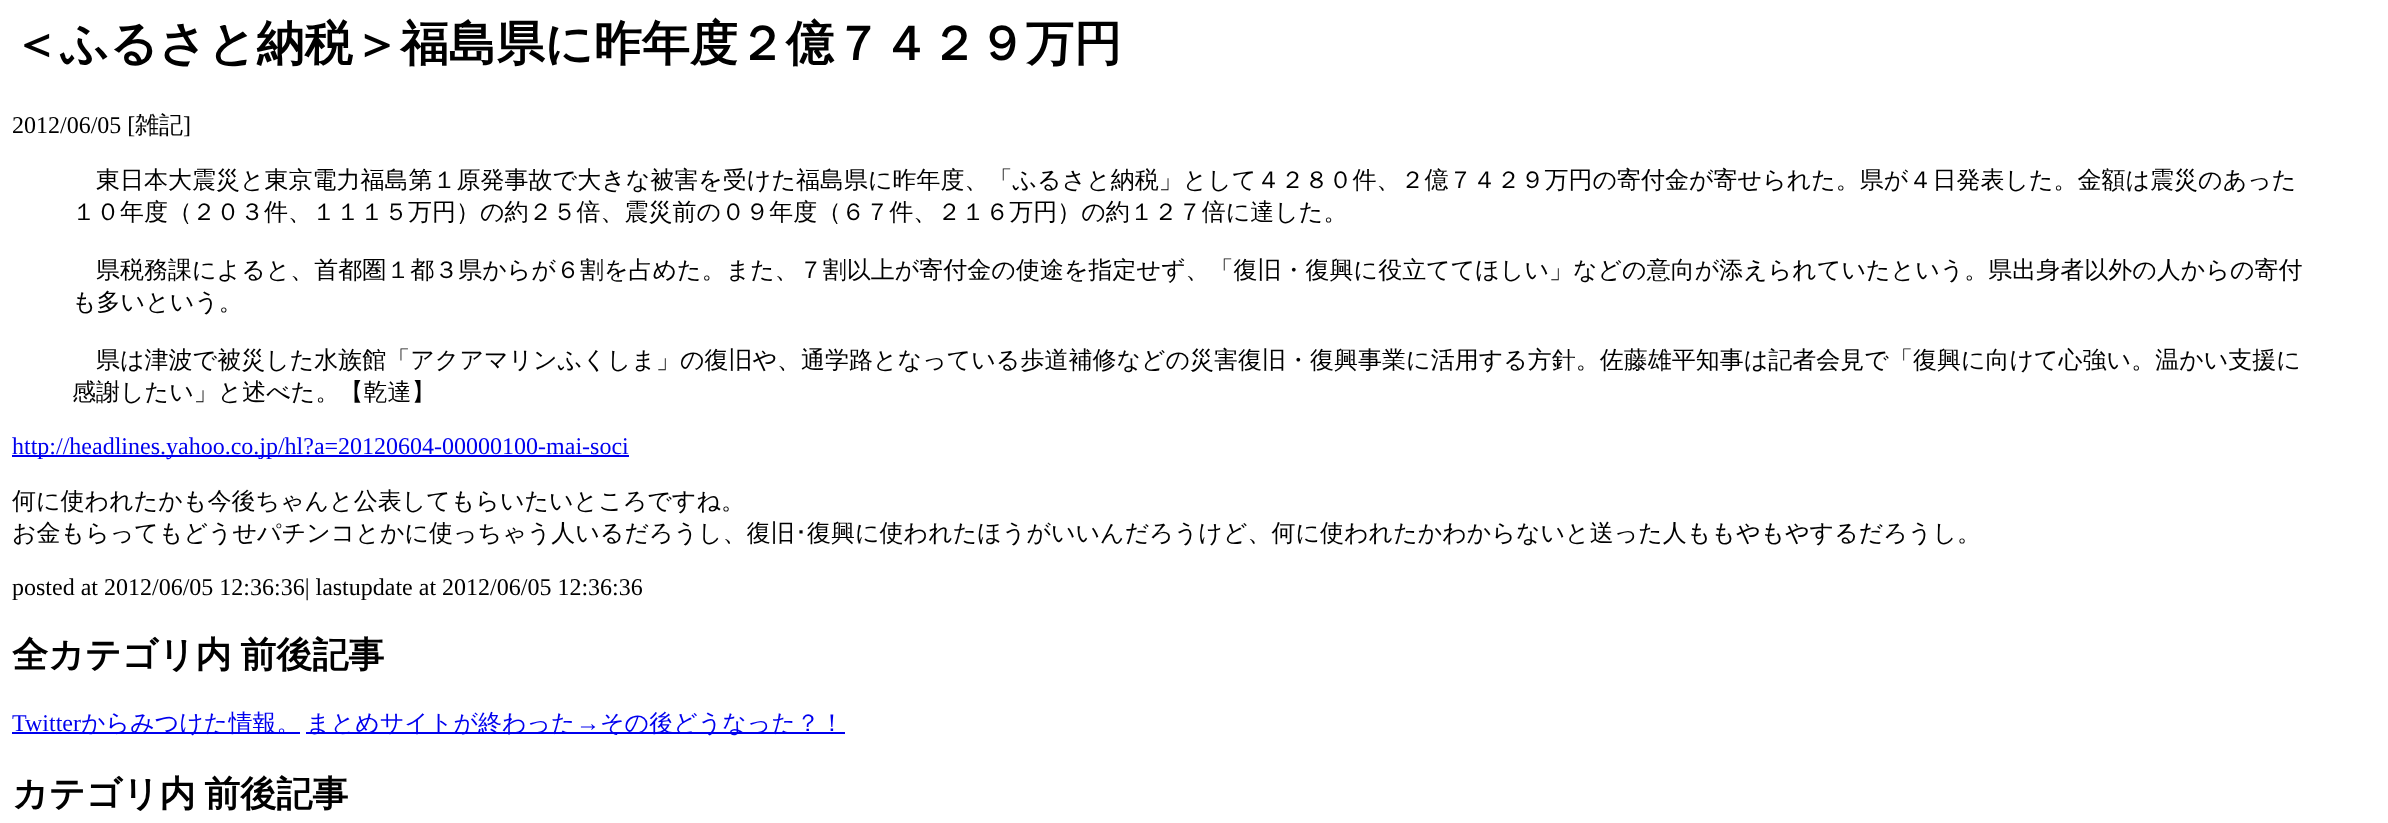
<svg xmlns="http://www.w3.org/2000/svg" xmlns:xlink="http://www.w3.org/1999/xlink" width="2388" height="823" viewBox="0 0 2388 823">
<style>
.cls-1{font:bold 48px WenQuanYi Zen Hei;fill:#000000}
.cls-2{font:24px Liberation Serif;fill:#000000}
.cls-3{font:500 24px WenQuanYi Zen Hei;fill:#000000}
.cls-4{font:24px Liberation Serif;fill:#0000ee}
.cls-5{font:24px IPAGothic;fill:#000000}
.cls-6{font:bold 36px WenQuanYi Zen Hei;fill:#000000}
.cls-7{font:500 24px WenQuanYi Zen Hei;fill:#0000ee}
</style>
<rect width="100%" height="100%" fill="#ffffff"/>
<rect fill="#0000ee" x="12" y="455" width="617" height="2"/>
<rect fill="#0000ee" x="12" y="732" width="288" height="2"/>
<rect fill="#0000ee" x="306" y="732" width="539" height="2"/>
<text class="cls-1" x="12" y="60">＜ふるさと納税＞福島県に昨年度２億７４２９万円</text>
<text class="cls-2" x="12" y="133">2012/06/05 [</text>
<text class="cls-3" x="135" y="133">雑記</text>
<text class="cls-2" x="183" y="133">]</text>
<text class="cls-3" x="96" y="188">東日本大震災と東京電力福島第１原発事故で大きな被害を受けた福島県に昨年度、「ふるさと納税」として４２８０件、２億７４２９万円の寄付金が寄せられた。県が４日発表した。金額は震災のあった</text>
<text class="cls-3" x="72" y="220">１０年度（２０３件、１１１５万円）の約２５倍、震災前の０９年度（６７件、２１６万円）の約１２７倍に達した。</text>
<text class="cls-3" x="96" y="278">県税務課によると、首都圏１都３県からが６割を占めた。また、７割以上が寄付金の使途を指定せず、「復旧・復興に役立ててほしい」などの意向が添えられていたという。県出身者以外の人からの寄付</text>
<text class="cls-3" x="72" y="310">も多いという。</text>
<text class="cls-3" x="96" y="368">県は津波で被災した水族館「アクアマリンふくしま」の復旧や、通学路となっている歩道補修などの災害復旧・復興事業に活用する方針。佐藤雄平知事は記者会見で「復興に向けて心強い。温かい支援に</text>
<text class="cls-3" x="72" y="400">感謝したい」と述べた。【乾達】</text>
<text class="cls-4" x="12" y="454">http://headlines.yahoo.co.jp/hl?a=20120604-00000100-mai-soci</text>
<text class="cls-3"><tspan x="12" y="509">何に使われたかも今後ちゃんと公表してもらいたいところですね。</tspan><tspan x="12" y="541">お金もらってもどうせパチンコとかに使っちゃう人いるだろうし、復旧</tspan></text>
<text class="cls-5" x="795" y="541">･</text>
<text class="cls-3" x="807" y="541">復興に使われたほうがいいんだろうけど、何に使われたかわからないと送った人ももやもやするだろうし。</text>
<text class="cls-2" x="12" y="595">posted at 2012/06/05 12:36:36| lastupdate at 2012/06/05 12:36:36</text>
<text class="cls-6" x="12" y="667" word-spacing="-2">全カテゴリ内 前後記事</text>
<text class="cls-4" x="12" y="731">Twitter</text>
<text class="cls-7" x="81" y="731">からみつけた情報。</text>
<text class="cls-7" x="306" y="731">まとめサイトが終わった</text>
<text class="cls-4" x="576" y="731">→</text>
<text class="cls-7" x="600" y="731">その後どうなった？！</text>
<text class="cls-6" x="12" y="806" word-spacing="-2">カテゴリ内 前後記事</text>
</svg>
